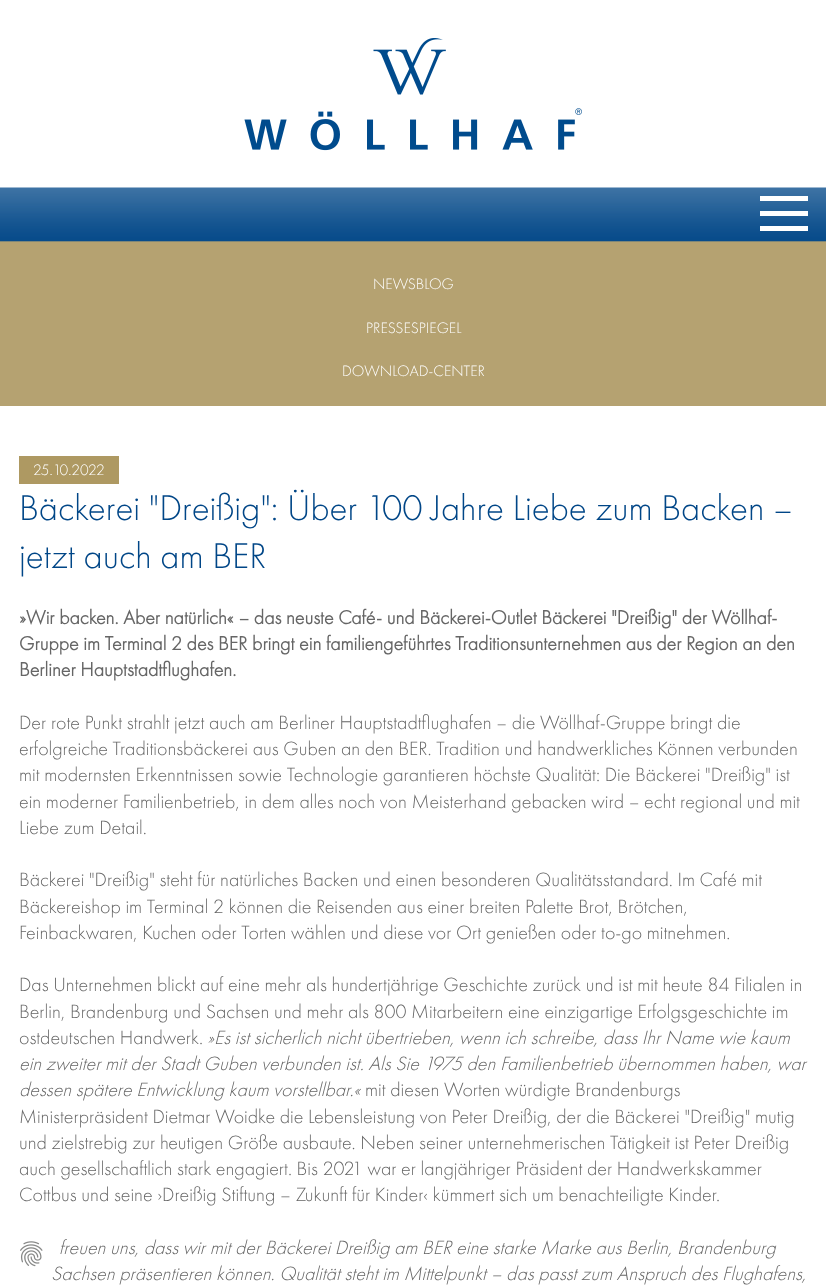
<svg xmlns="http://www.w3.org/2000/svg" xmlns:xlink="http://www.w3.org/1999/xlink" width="826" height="1285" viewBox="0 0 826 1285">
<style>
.cls-1{font:300 15.75px Futura PT;fill:#ffffff}
.cls-2{font:300 37.1px Futura PT;fill:#004687}
.cls-3{font:bold 20px Futura PT;fill:#666666}
.cls-4{font:300 20px Futura PT;fill:#666666}
.cls-5{font:italic 300 20px Futura PT;fill:#666666}
</style>
<rect width="100%" height="100%" fill="#ffffff"/>
<image xlink:href="image0.png" x="244" y="38" width="338" height="113"/>
<image xlink:href="image1.png" x="0" y="187" width="826" height="63"/>
<rect fill="#ffffff" x="760" y="196" width="48" height="5"/>
<rect fill="#ffffff" x="760" y="211" width="48" height="5"/>
<rect fill="#ffffff" x="760" y="226" width="48" height="5"/>
<rect fill="#b5a271" x="0" y="250" width="826" height="156"/>
<rect fill="#ae9962" x="19" y="456" width="100" height="28"/>
<image xlink:href="image2.png" x="20" y="1241" width="23" height="26"/>
<text class="cls-1" x="373" y="289">NEWSBLOG</text>
<text class="cls-1" x="366" y="333">PRESSESPIEGEL</text>
<text class="cls-1" x="342" y="376">DOWNLOAD-CENTER</text>
<text class="cls-1" x="33" y="475">25.10.2022</text>
<text class="cls-2"><tspan x="19" y="520">Bäckerei "Dreißig": Über 100 Jahre Liebe zum Backen –</tspan><tspan x="19" y="568">jetzt auch am BER</tspan></text>
<text class="cls-3"><tspan x="19" y="624">»Wir backen. Aber natürlich« – das neuste Café- und Bäckerei-Outlet Bäckerei "Dreißig" der Wöllhaf-</tspan><tspan x="19" y="650">Gruppe im Terminal 2 des BER bringt ein familiengeführtes Traditionsunternehmen aus der Region an den</tspan><tspan x="19" y="676">Berliner Hauptstadtflughafen.</tspan></text>
<text class="cls-4"><tspan x="19" y="729">Der rote Punkt strahlt jetzt auch am Berliner Hauptstadtflughafen – die Wöllhaf-Gruppe bringt die</tspan><tspan x="19" y="755">erfolgreiche Traditionsbäckerei aus Guben an den BER. Tradition und handwerkliches Können verbunden</tspan><tspan x="19" y="781">mit modernsten Erkenntnissen sowie Technologie garantieren höchste Qualität: Die Bäckerei "Dreißig" ist</tspan><tspan x="19" y="808">ein moderner Familienbetrieb, in dem alles noch von Meisterhand gebacken wird – echt regional und mit</tspan><tspan x="19" y="834">Liebe zum Detail.</tspan></text>
<text class="cls-4"><tspan x="19" y="886">Bäckerei "Dreißig" steht für natürliches Backen und einen besonderen Qualitätsstandard. Im Café mit</tspan><tspan x="19" y="913">Bäckereishop im Terminal 2 können die Reisenden aus einer breiten Palette Brot, Brötchen,</tspan><tspan x="19" y="939">Feinbackwaren, Kuchen oder Torten wählen und diese vor Ort genießen oder to-go mitnehmen.</tspan></text>
<text class="cls-4"><tspan x="19" y="991">Das Unternehmen blickt auf eine mehr als hundertjährige Geschichte zurück und ist mit heute 84 Filialen in</tspan><tspan x="19" y="1018">Berlin, Brandenburg und Sachsen und mehr als 800 Mitarbeitern eine einzigartige Erfolgsgeschichte im</tspan><tspan x="19" y="1044">ostdeutschen Handwerk.</tspan></text>
<text class="cls-5" x="207" y="1044">»Es ist sicherlich nicht übertrieben, wenn ich schreibe, dass Ihr Name wie kaum</text>
<text class="cls-5"><tspan x="19" y="1070">ein zweiter mit der Stadt Guben verbunden ist. Als Sie 1975 den Familienbetrieb übernommen haben, war</tspan><tspan x="19" y="1096">dessen spätere Entwicklung kaum vorstellbar.«</tspan></text>
<text class="cls-4" x="365" y="1096">mit diesen Worten würdigte Brandenburgs</text>
<text class="cls-4"><tspan x="19" y="1123">Ministerpräsident Dietmar Woidke die Lebensleistung von Peter Dreißig, der die Bäckerei "Dreißig" mutig</tspan><tspan x="19" y="1149">und zielstrebig zur heutigen Größe ausbaute. Neben seiner unternehmerischen Tätigkeit ist Peter Dreißig</tspan><tspan x="19" y="1175">auch gesellschaftlich stark engagiert. Bis 2021 war er langjähriger Präsident der Handwerkskammer</tspan><tspan x="19" y="1201">Cottbus und seine ›Dreißig Stiftung – Zukunft für Kinder‹ kümmert sich um benachteiligte Kinder.</tspan></text>
<text class="cls-5" x="59" y="1254">freuen uns, dass wir mit der Bäckerei Dreißig am BER eine starke Marke aus Berlin, Brandenburg</text>
<text class="cls-5" x="51" y="1280">Sachsen präsentieren können. Qualität steht im Mittelpunkt – das passt zum Anspruch des Flughafens,</text>
</svg>
